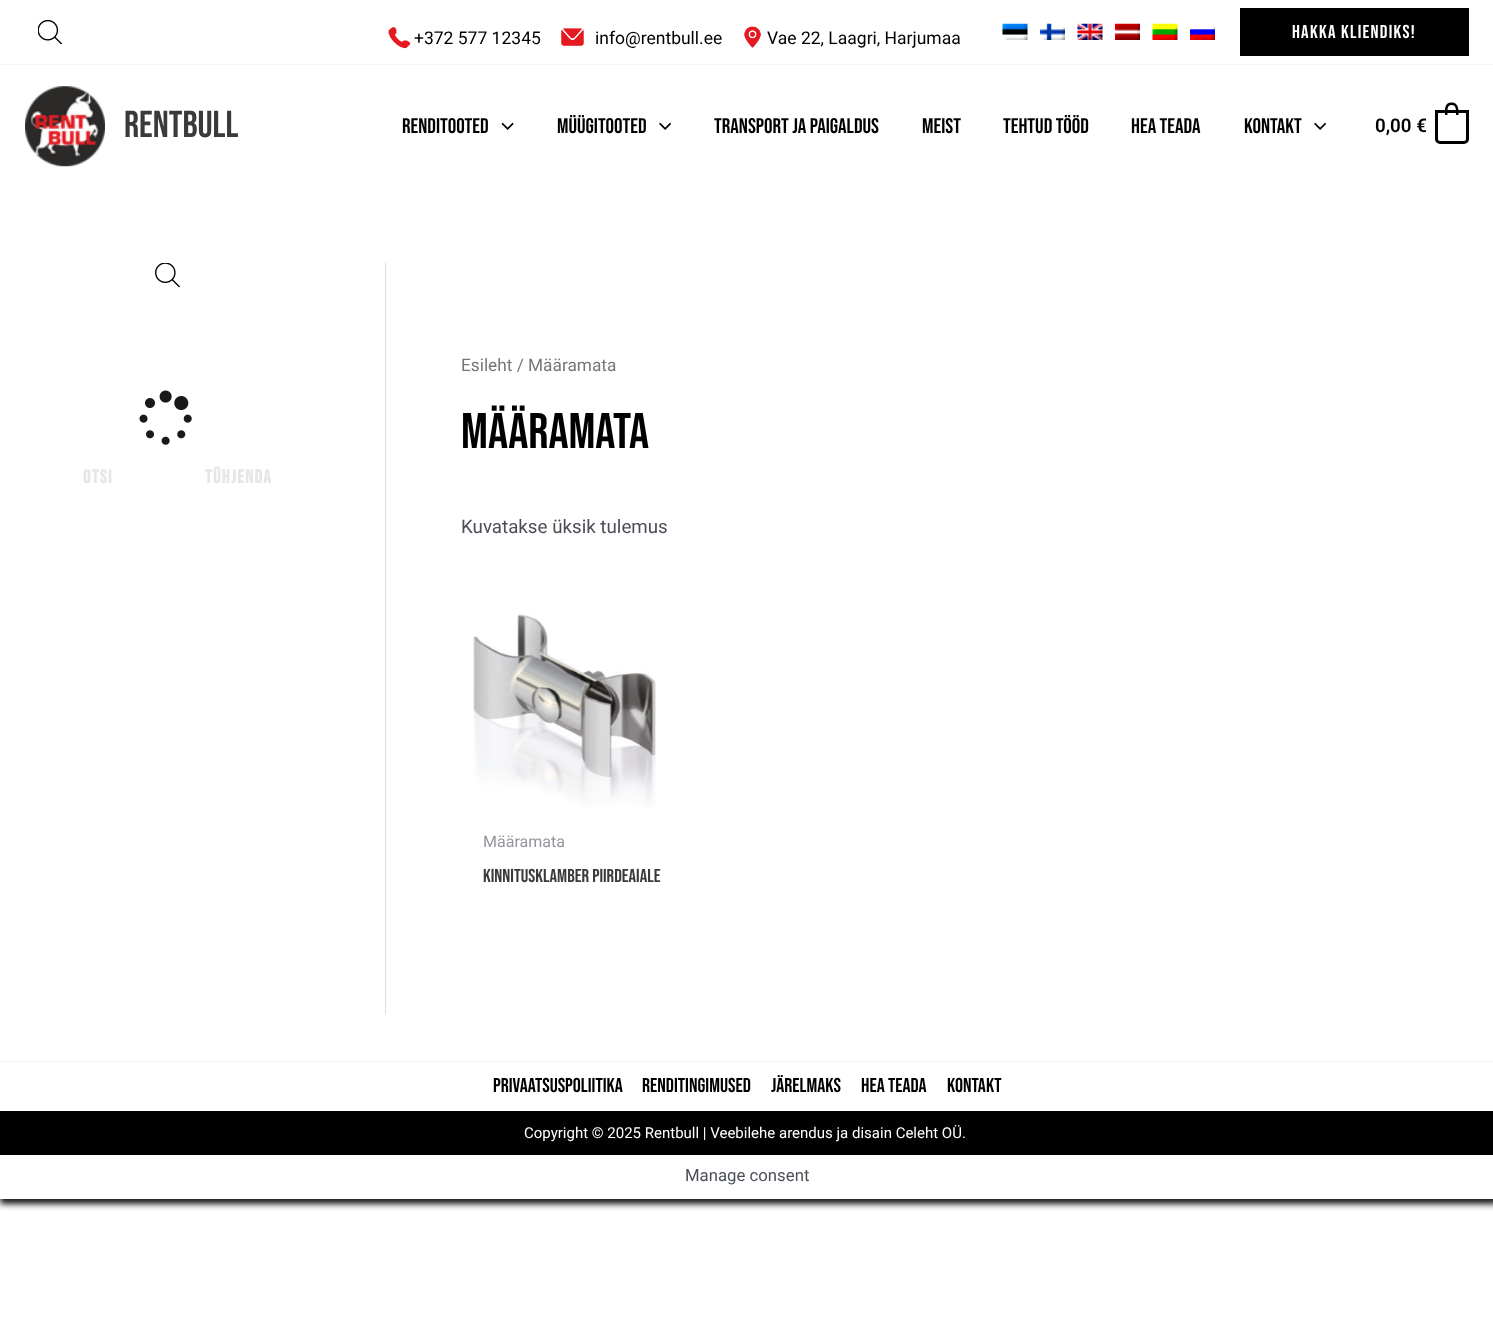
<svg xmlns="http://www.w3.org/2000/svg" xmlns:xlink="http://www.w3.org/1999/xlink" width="1493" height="1331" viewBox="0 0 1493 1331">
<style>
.cls-1{font:17.5px Roboto;fill:#000000}
.cls-2{font:18.75px Bebas Neue;letter-spacing:1.25px;fill:#ffffff}
.cls-3{font:37.5px Bebas Neue;fill:#3a3a3a}
.cls-4{font:21.25px Bebas Neue;fill:#000000}
.cls-5{font:600 18.75px Roboto;fill:#000000}
.cls-6{font:bold 18.75px Bebas Neue;letter-spacing:1.25px;fill:#e6e6e6}
.cls-7{font:17.25px Roboto;fill:#777777}
.cls-8{font:50px Bebas Neue;fill:#000000}
.cls-9{font:18.75px Roboto;fill:#4b4f58}
.cls-10{font:16px Roboto;fill:#93959b}
.cls-11{font:18.75px Bebas Neue;fill:#3a3a3a}
.cls-12{font:20px Bebas Neue;fill:#000000}
.cls-13{font:15px Roboto;fill:#ffffff}
.cls-14{font:16.75px Roboto;fill:#4b4f58}
</style>
<defs>
<clipPath id="clip1"><path d="M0 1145H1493V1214H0ZM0 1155H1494V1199H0Z" clip-rule="evenodd"/></clipPath>
</defs>
<rect width="100%" height="100%" fill="#ffffff"/>
<rect fill="#f2f5f7" x="0" y="64" width="1493" height="1"/>
<image xlink:href="image0.png" x="38" y="20" width="25" height="24"/>
<image xlink:href="image1.png" x="388" y="27" width="23" height="22"/>
<image xlink:href="image2.png" x="561" y="28" width="23" height="18"/>
<image xlink:href="image3.png" x="744" y="26" width="17" height="22"/>
<image xlink:href="image4.png" x="1002" y="23" width="26" height="17"/>
<image xlink:href="image5.png" x="1040" y="23" width="25" height="17"/>
<image xlink:href="image6.png" x="1077" y="23" width="26" height="17"/>
<image xlink:href="image7.png" x="1115" y="23" width="25" height="17"/>
<image xlink:href="image8.png" x="1152" y="23" width="26" height="17"/>
<image xlink:href="image9.png" x="1190" y="26" width="25" height="14"/>
<rect fill="#000000" x="1240" y="8" width="229" height="48"/>
<image xlink:href="image10.png" x="25" y="86" width="80" height="81"/>
<image xlink:href="image11.png" x="501" y="122" width="13" height="8"/>
<image xlink:href="image12.png" x="659" y="122" width="12" height="8"/>
<image xlink:href="image12.png" x="1314" y="122" width="12" height="8"/>
<path fill="none" stroke="#000000" stroke-width="3" d="M1436.5 111.5H1467.5V139C1467.5 141 1466 142.5 1464 142.5H1440C1438 142.5 1436.5 141 1436.5 139Z"/>
<path fill="#000000" fill-rule="evenodd" d="M1451.5 102.5C1459 102.5 1458.5 110 1458.5 115H1445C1445 110 1444 102.5 1451.5 102.5ZM1451.5 105C1457 105 1456 111.5 1456 115H1447.5C1447.5 111.5 1446.5 105 1451.5 105Z"/>
<rect fill="#dddddd" x="385" y="263" width="1" height="751"/>
<image xlink:href="image13.png" x="155" y="263" width="25" height="25"/>
<image xlink:href="image14.png" x="139" y="390" width="53" height="55"/>
<image xlink:href="image15.png" x="473" y="614" width="183" height="193"/>
<rect fill="#f2f5f7" x="0" y="1061" width="1493" height="1"/>
<g clip-path="url(#clip1)">
<rect fill="#161616" filter="blur(3px)" x="0" y="1155" width="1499" height="49"/>
</g>
<rect fill="#010101" x="0" y="1111" width="1493" height="44"/>
<text class="cls-1" x="414" y="44">+372 577 12345</text>
<text class="cls-1" x="595" y="44">info@rentbull.ee</text>
<text class="cls-1" x="767" y="44">Vae 22, Laagri, Harjumaa</text>
<text class="cls-2" x="1292" y="38">HAKKA KLIENDIKS!</text>
<text class="cls-3" x="124" y="137">Rentbull</text>
<text class="cls-4" x="402" y="133">Renditooted</text>
<text class="cls-4" x="557" y="133">Müügitooted</text>
<text class="cls-4" x="714" y="133">Transport ja Paigaldus</text>
<text class="cls-4" x="922" y="133">Meist</text>
<text class="cls-4" x="1003" y="133">Tehtud tööd</text>
<text class="cls-4" x="1131" y="133">Hea Teada</text>
<text class="cls-4" x="1244" y="133">Kontakt</text>
<text class="cls-5" x="1375" y="132">0,00 €</text>
<text class="cls-6" x="83" y="483">OTSI</text>
<text class="cls-6" x="205" y="483">TÜHJENDA</text>
<text class="cls-7" x="461" y="371">Esileht / Määramata</text>
<text class="cls-8" x="461" y="448">Määramata</text>
<text class="cls-9" x="461" y="533">Kuvatakse üksik tulemus</text>
<text class="cls-10" x="483" y="847">Määramata</text>
<text class="cls-11" x="483" y="882">Kinnitusklamber piirdeaiale</text>
<text class="cls-12" x="493" y="1092">Privaatsuspoliitika</text>
<text class="cls-12" x="642" y="1092">Renditingimused</text>
<text class="cls-12" x="771" y="1092">Järelmaks</text>
<text class="cls-12" x="861" y="1092">Hea teada</text>
<text class="cls-12" x="947" y="1092">Kontakt</text>
<text class="cls-13" x="524" y="1138">Copyright © 2025 Rentbull | Veebilehe arendus ja disain Celeht OÜ.</text>
<text class="cls-14" x="685" y="1181">Manage consent</text>
</svg>
